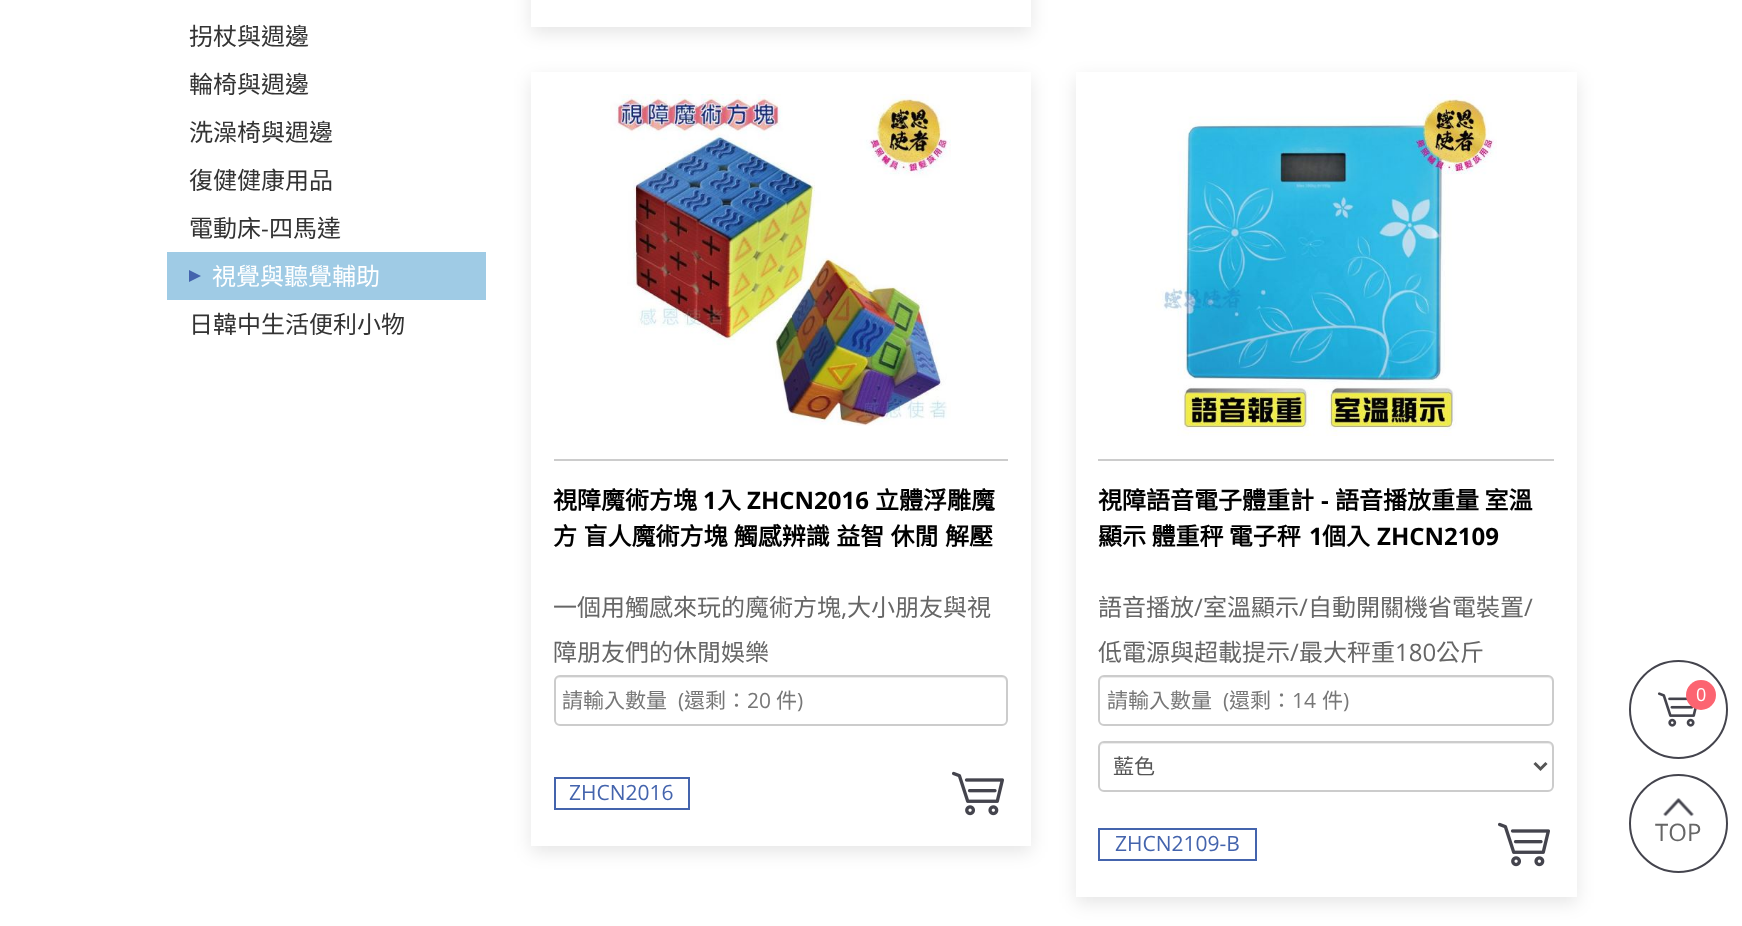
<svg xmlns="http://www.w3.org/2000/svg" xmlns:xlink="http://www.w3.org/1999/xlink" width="1742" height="926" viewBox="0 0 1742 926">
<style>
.cls-1{font:24px Noto Sans CJK TC;fill:#333333}
.cls-2{font:24px Open Sans;fill:#333333}
.cls-3{font:24px Noto Sans CJK TC;fill:#ffffff}
.cls-4{font:bold 24px Noto Sans CJK TC;fill:#000000}
.cls-5{font:bold 24px Open Sans;fill:#000000}
.cls-6{font:24px Noto Sans CJK TC;fill:#666666}
.cls-7{font:24px Open Sans;fill:#666666}
.cls-8{font:21px Noto Sans CJK TC;fill:#777777}
.cls-9{font:21px Open Sans;fill:#777777}
.cls-10{font:21px Open Sans;fill:#4464ad}
.cls-11{font:21px Noto Sans CJK TC;fill:#555555}
.cls-12{font:18px Open Sans;fill:#ffffff}
</style>
<rect width="100%" height="100%" fill="#ffffff"/>
<rect fill="#9fcbe5" x="167" y="252" width="319" height="48"/>
<path fill="#4464ad" d="M189 282V270L201 276Z"/>
<rect fill="#000000" fill-opacity="0.1" filter="blur(9px)" x="531" y="-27" width="500" height="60"/>
<rect fill="#ffffff" x="531" y="0" width="500" height="27"/>
<rect fill="#000000" fill-opacity="0.1" filter="blur(9px)" x="531" y="78" width="500" height="774"/>
<rect fill="#ffffff" x="531" y="72" width="500" height="774"/>
<image xlink:href="image0.png" x="610" y="94" width="341" height="332"/>
<rect fill="#cccccc" x="554" y="459" width="454" height="2"/>
<path fill="#ececec" d="M560 678H1002C1004 678 1006 680 1006 682V723C1007 722 1007 721 1007 720V682C1007 679 1005 677 1002 677H560C557 677 555 679 555 682C555 680 557 678 560 678Z"/>
<rect fill="none" stroke="#cccccc" stroke-width="2" x="555" y="676" width="452" height="49" rx="5"/>
<rect fill="none" stroke="#4464ad" stroke-width="2" x="555" y="778" width="134" height="31"/>
<image xlink:href="image1.png" x="952" y="771" width="52" height="45"/>
<rect fill="#000000" fill-opacity="0.1" filter="blur(9px)" x="1076" y="78" width="501" height="825"/>
<rect fill="#ffffff" x="1076" y="72" width="501" height="825"/>
<image xlink:href="image2.png" x="1155" y="94" width="342" height="342"/>
<rect fill="#cccccc" x="1098" y="459" width="456" height="2"/>
<path fill="#ececec" d="M1104 678H1548C1550 678 1552 680 1552 682V723C1553 722 1553 721 1553 720V682C1553 679 1551 677 1548 677H1105C1102 677 1100 679 1100 682C1100 680 1102 678 1104 678Z"/>
<rect fill="none" stroke="#cccccc" stroke-width="2" x="1099" y="676" width="454" height="49" rx="5"/>
<path fill="#ececec" d="M1104 744H1548C1550 744 1552 746 1552 748V789C1553 788 1553 787 1553 786V748C1553 745 1551 743 1548 743H1105C1102 743 1100 745 1100 748C1100 746 1102 744 1104 744Z"/>
<rect fill="none" stroke="#cccccc" stroke-width="2" x="1099" y="742" width="454" height="49" rx="5"/>
<path fill="none" stroke="#555555" stroke-width="3" d="M1534.5 763L1540.5 769L1546.5 763"/>
<rect fill="none" stroke="#4464ad" stroke-width="2" x="1099" y="829" width="157" height="31"/>
<image xlink:href="image1.png" x="1498" y="822" width="52" height="45"/>
<circle fill="none" stroke="#44444d" stroke-width="2" cx="1678.5" cy="709.5" r="48.5"/>
<image xlink:href="image3.png" x="1657" y="692" width="40" height="35"/>
<circle fill="#fc6471" cx="1701" cy="695" r="15"/>
<circle fill="none" stroke="#44444d" stroke-width="2" cx="1678.5" cy="823.5" r="48.5"/>
<image xlink:href="image4.png" x="1663" y="798" width="31" height="19"/>
<text class="cls-1" x="189" y="45">拐杖與週邊</text>
<text class="cls-1" x="189" y="93">輪椅與週邊</text>
<text class="cls-1" x="189" y="141">洗澡椅與週邊</text>
<text class="cls-1" x="189" y="189">復健健康用品</text>
<text class="cls-1" x="189" y="237">電動床</text>
<text class="cls-2" x="261" y="237">-</text>
<text class="cls-1" x="269" y="237">四馬達</text>
<text class="cls-3" x="212" y="285">視覺與聽覺輔助</text>
<text class="cls-1" x="189" y="333">日韓中生活便利小物</text>
<text class="cls-4" x="553" y="509">視障魔術方塊</text>
<text class="cls-5" x="703" y="509">1</text>
<text class="cls-4" x="717" y="509">入</text>
<text class="cls-5" x="747" y="509">ZHCN2016</text>
<text class="cls-4" x="875" y="509">立體浮雕魔</text>
<text class="cls-4" x="553" y="545" word-spacing="1">方 盲人魔術方塊 觸感辨識 益智 休閒 解壓</text>
<text class="cls-6" x="553" y="616">一個用觸感來玩的魔術方塊</text>
<text class="cls-7" x="841" y="616">,</text>
<text class="cls-6" x="847" y="616">大小朋友與視</text>
<text class="cls-6" x="553" y="661">障朋友們的休閒娛樂</text>
<text class="cls-8" x="562" y="708">請輸入數量</text>
<text class="cls-9" x="678" y="708">(</text>
<text class="cls-8" x="684" y="708">還剩：</text>
<text class="cls-9" x="747" y="708">20</text>
<text class="cls-8" x="776" y="708">件</text>
<text class="cls-9" x="797" y="708">)</text>
<text class="cls-10" x="569" y="800">ZHCN2016</text>
<text class="cls-4" x="1098" y="509">視障語音電子體重計</text>
<text class="cls-5" x="1321" y="509">-</text>
<text class="cls-4" x="1335" y="509">語音播放重量 室溫</text>
<text class="cls-4" x="1098" y="545">顯示 體重秤 電子秤</text>
<text class="cls-5" x="1309" y="545">1</text>
<text class="cls-4" x="1322" y="545">個入</text>
<text class="cls-5" x="1377" y="545">ZHCN2109</text>
<text class="cls-6" x="1098" y="616">語音播放</text>
<text class="cls-7" x="1194" y="616">/</text>
<text class="cls-6" x="1203" y="616">室溫顯示</text>
<text class="cls-7" x="1299" y="616">/</text>
<text class="cls-6" x="1308" y="616">自動開關機省電裝置</text>
<text class="cls-7" x="1524" y="616">/</text>
<text class="cls-6" x="1098" y="661">低電源與超載提示</text>
<text class="cls-7" x="1290" y="661">/</text>
<text class="cls-6" x="1299" y="661">最大秤重</text>
<text class="cls-7" x="1395" y="661">180</text>
<text class="cls-6" x="1436" y="661">公斤</text>
<text class="cls-8" x="1107" y="708">請輸入數量</text>
<text class="cls-9" x="1223" y="708">(</text>
<text class="cls-8" x="1229" y="708">還剩：</text>
<text class="cls-9" x="1292" y="708">14</text>
<text class="cls-8" x="1322" y="708">件</text>
<text class="cls-9" x="1343" y="708">)</text>
<text class="cls-11" x="1113" y="774">藍色</text>
<text class="cls-10" x="1115" y="851">ZHCN2109-B</text>
<text class="cls-12" x="1696" y="701">0</text>
<text class="cls-7" x="1655" y="841">TOP</text>
</svg>
